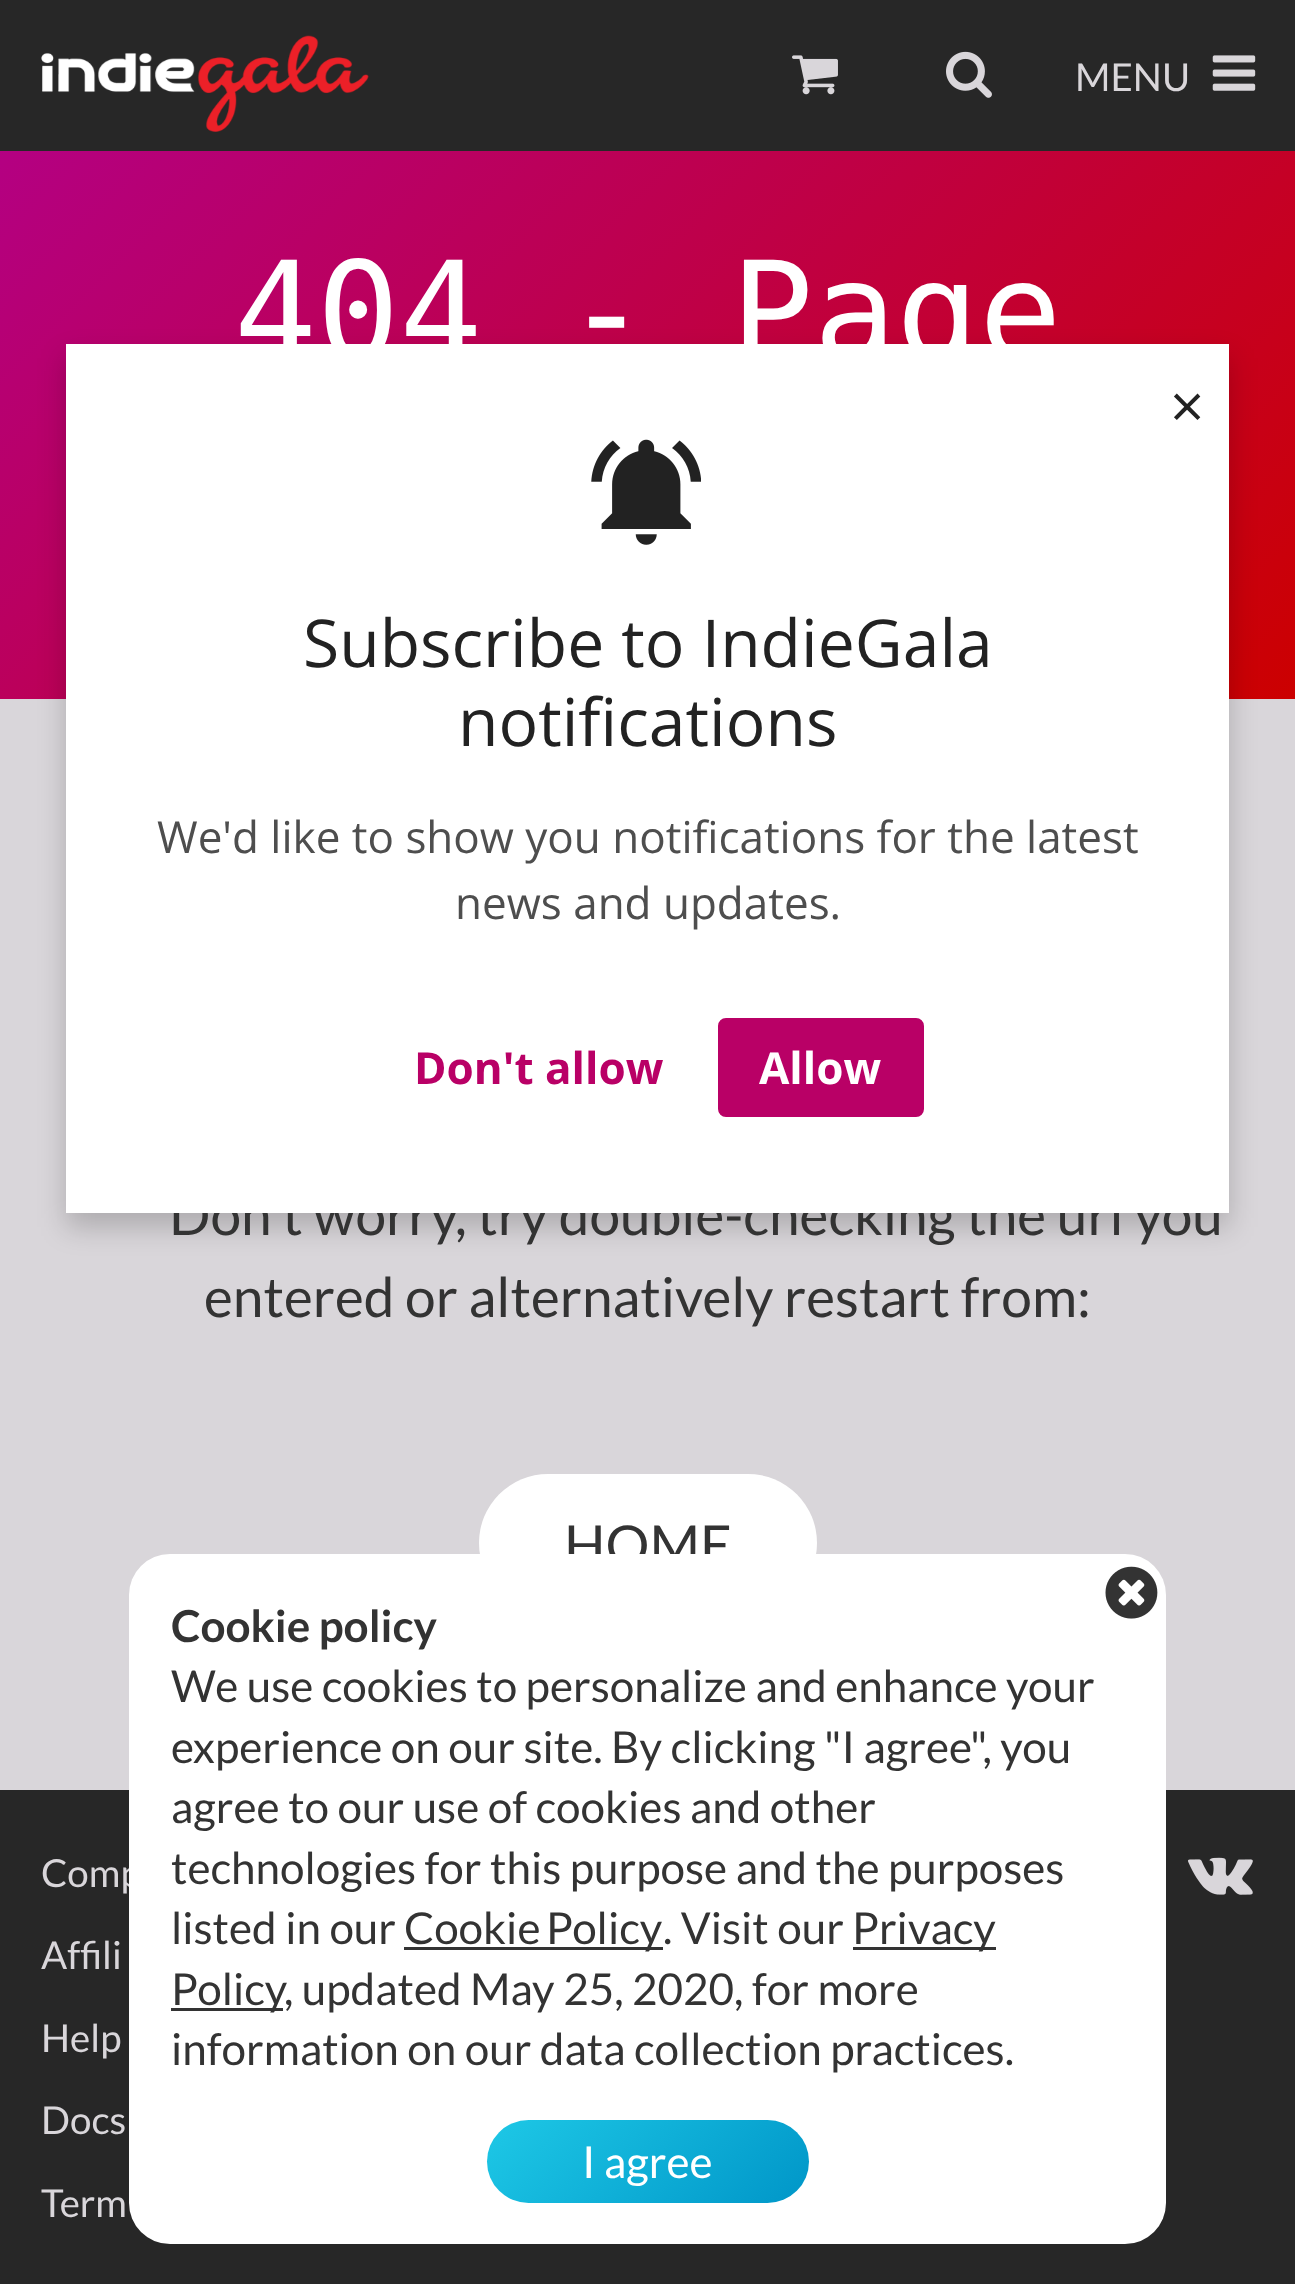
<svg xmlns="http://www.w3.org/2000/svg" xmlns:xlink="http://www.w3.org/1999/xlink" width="1295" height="2284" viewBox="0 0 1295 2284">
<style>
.cls-1{font:38.5px Lato;fill:#d9d6da}
.cls-2{font:137.5px DejaVu Sans Mono;fill:#ffffff}
.cls-3{font:55px Lato;fill:#333333}
.cls-4{font:bold 44px Lato;fill:#333333}
.cls-5{font:44px Lato;fill:#333333}
.cls-6{font:44px Lato;fill:#ffffff}
.cls-7{font:60px Open Sans;fill:#222222}
.cls-8{font:66px Open Sans;fill:#222222}
.cls-9{font:44px Open Sans;fill:#4e4e4e}
.cls-10{font:bold 44px Open Sans;fill:#b90066}
.cls-11{font:bold 44px Open Sans;fill:#ffffff}
</style>
<defs>
<linearGradient id="g1" gradientUnits="userSpaceOnUse" x1="173" y1="-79" x2="1123" y2="871"><stop offset="0" stop-color="#b30086"/><stop offset="1" stop-color="#cc0000"/></linearGradient>
<linearGradient id="g2" gradientUnits="userSpaceOnUse" x1="547" y1="2060" x2="749" y2="2263"><stop offset="0" stop-color="#1ec8e6"/><stop offset="1" stop-color="#0096c8"/></linearGradient>
</defs>
<rect width="100%" height="100%" fill="#d9d6da"/>
<rect fill="#272727" x="0" y="0" width="1295" height="151"/>
<image xlink:href="image0.png" x="41" y="35" width="328" height="97"/>
<image xlink:href="image1.png" x="792" y="55" width="46" height="40"/>
<image xlink:href="image2.png" x="946" y="51" width="46" height="47"/>
<image xlink:href="image3.png" x="1212" y="55" width="44" height="36"/>
<rect fill="url(#g1)" x="0" y="151" width="1295" height="548"/>
<rect fill="#ffffff" x="479" y="1474" width="338" height="138" rx="69"/>
<rect fill="#272727" x="0" y="1790" width="1295" height="494"/>
<image xlink:href="image4.png" x="1188" y="1857" width="65" height="38"/>
<rect fill="#000000" fill-opacity="0.2" filter="blur(14px)" x="66" y="358" width="1163" height="869"/>
<text class="cls-1" x="1075" y="91">MENU</text>
<text class="cls-2" x="234" y="360">404 - Page</text>
<text class="cls-3" x="169" y="1235">Don't worry, try double-checking the url you</text>
<text class="cls-3" x="204" y="1317">entered or alternatively restart from:</text>
<text class="cls-3" x="564" y="1565">HOME</text>
<text class="cls-1" x="41" y="1887">Comp</text>
<text class="cls-1" x="41" y="1969">Affili</text>
<text class="cls-1" x="41" y="2052">Help</text>
<text class="cls-1" x="41" y="2134">Docs</text>
<text class="cls-1" x="41" y="2217">Term</text>
<rect fill="#ffffff" x="129" y="1554" width="1037" height="690" rx="41"/>
<image xlink:href="image5.png" x="1105" y="1566" width="53" height="53"/>
<text class="cls-4" x="171" y="1642">Cookie policy</text>
<text class="cls-5"><tspan x="171" y="1702">We use cookies to personalize and enhance your</tspan><tspan x="171" y="1763">experience on our site. By clicking "I agree", you</tspan><tspan x="171" y="1823">agree to our use of cookies and other</tspan><tspan x="171" y="1884">technologies for this purpose and the purposes</tspan><tspan x="171" y="1944">listed in our</tspan></text>
<rect fill="#333333" x="404" y="1947" width="259" height="3"/>
<text class="cls-5" x="404" y="1944" word-spacing="-3">Cookie Policy</text>
<text class="cls-5" x="663" y="1944">. Visit our</text>
<rect fill="#333333" x="853" y="1947" width="143" height="3"/>
<text class="cls-5" x="852" y="1944">Privacy</text>
<rect fill="#333333" x="171" y="2008" width="112" height="3"/>
<text class="cls-5" x="171" y="2005">Policy</text>
<text class="cls-5" x="284" y="2005">, updated May 25, 2020, for more</text>
<text class="cls-5" x="171" y="2065">information on our data collection practices.</text>
<rect fill="url(#g2)" x="487" y="2120" width="322" height="83" rx="41.5"/>
<text class="cls-6" x="582" y="2178">I agree</text>
<rect fill="#ffffff" x="66" y="344" width="1163" height="869"/>
<text class="cls-7" x="1170" y="428">×</text>
<image xlink:href="image6.png" x="591" y="439" width="110" height="106"/>
<text class="cls-8" x="303" y="667">Subscribe to IndieGala</text>
<text class="cls-8" x="458" y="746">notifications</text>
<text class="cls-9" x="157" y="853">We'd like to show you notifications for the latest</text>
<text class="cls-9" x="455" y="919">news and updates.</text>
<text class="cls-10" x="414" y="1084">Don't allow</text>
<rect fill="#b90066" stroke="#b90066" stroke-width="3" x="719.5" y="1019.5" width="203" height="96" rx="6.5"/>
<text class="cls-11" x="759" y="1084">Allow</text>
</svg>
